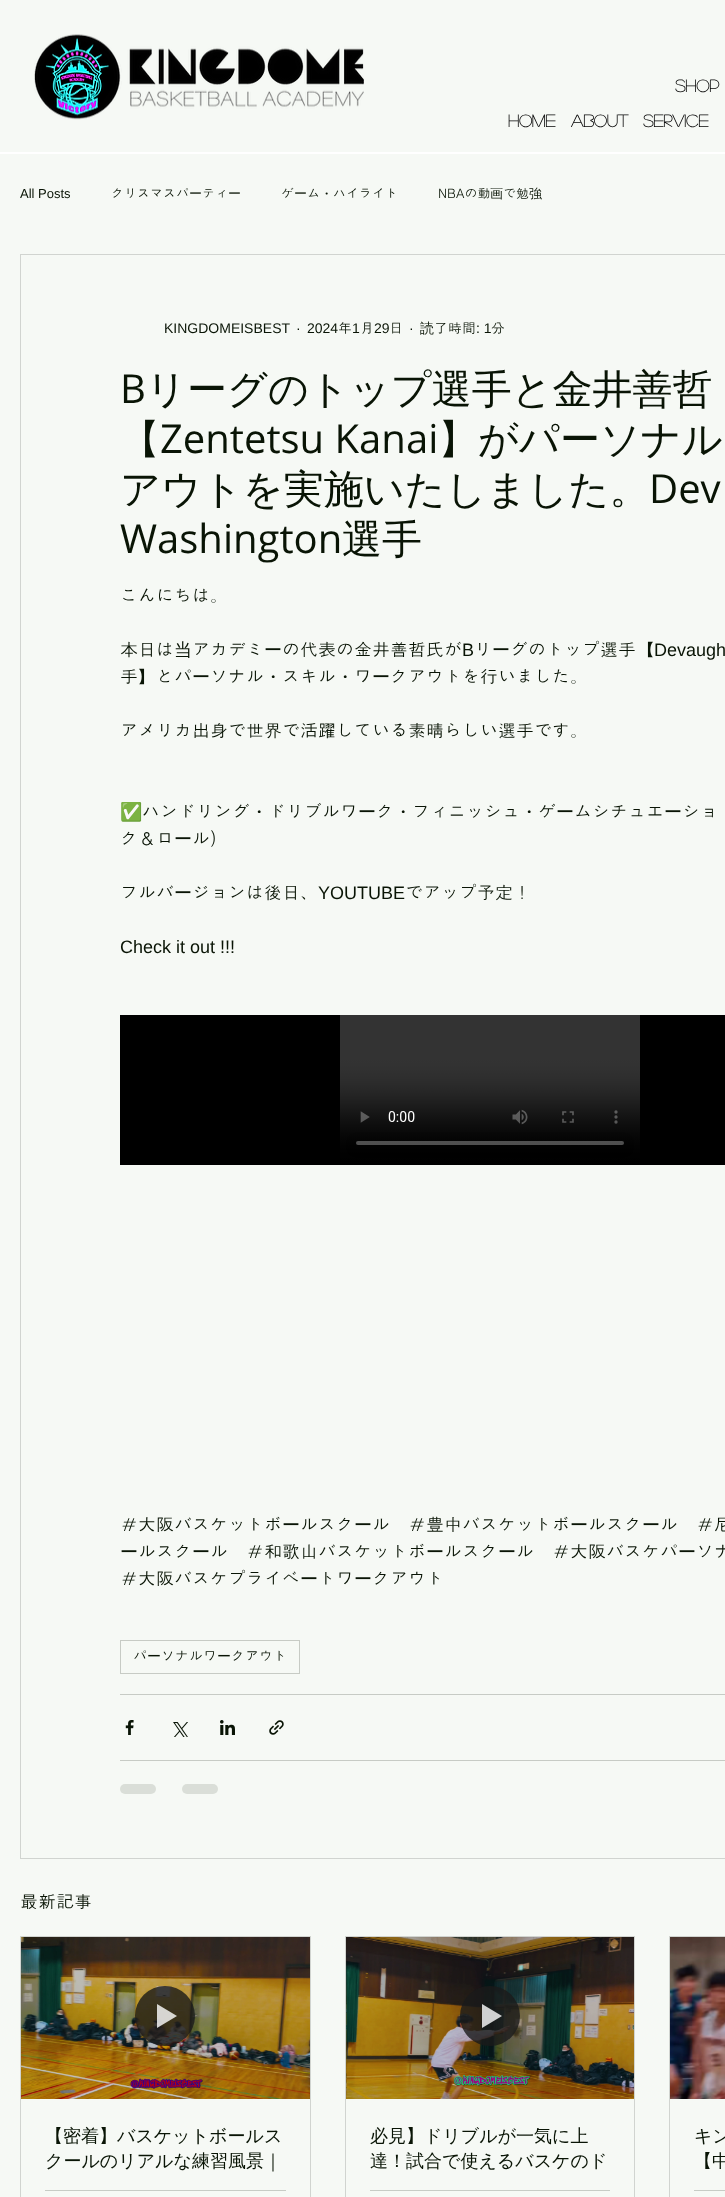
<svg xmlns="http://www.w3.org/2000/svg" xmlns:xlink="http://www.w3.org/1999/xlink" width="725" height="2197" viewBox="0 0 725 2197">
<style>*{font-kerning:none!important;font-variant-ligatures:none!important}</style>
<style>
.cls-1{font:bold 17px 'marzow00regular';fill:#000000}
.cls-2{font:13px Liberation Sans;fill:#091405}
.cls-3{font:13px Dotum;fill:#091405}
.cls-4{font:500 13px WenQuanYi Zen Hei;fill:#091405}
.cls-5{font:14px Liberation Sans;fill:#091405}
.cls-6{font:14px Dotum;fill:#091405}
.cls-7{font:500 14px WenQuanYi Zen Hei;fill:#091405}
.cls-8{font:40px Open Sans;fill:#091405}
.cls-9{font:500 40px WenQuanYi Zen Hei;fill:#091405}
.cls-10{font:18px Dotum;fill:#091405}
.cls-11{font:500 18px WenQuanYi Zen Hei;fill:#091405}
.cls-12{font:18px Liberation Sans;fill:#091405}
.cls-13{font:18px Noto Color Emoji;fill:#091405}
</style>
<rect width="100%" height="100%" fill="#f6f9f5"/>
<image xlink:href="image0.png" x="34" y="34" width="330" height="86"/>
<rect fill="#ffffff" x="0" y="152" width="725" height="2"/>
<rect fill="none" stroke="#d1d4d0" x="20.5" y="254.5" width="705" height="1604"/>
<image xlink:href="image1.png" x="120" y="1015" width="605" height="150"/>
<rect fill="none" stroke="#c7cbc5" x="120.5" y="1640.5" width="179" height="33"/>
<rect fill="#c7cbc5" x="120" y="1694" width="605" height="1"/>
<image xlink:href="image2.png" x="125" y="1720" width="9" height="15"/>
<image xlink:href="image3.png" x="173" y="1722" width="15" height="15"/>
<image xlink:href="image4.png" x="220" y="1720" width="15" height="15"/>
<image xlink:href="image5.png" x="269" y="1720" width="15" height="15"/>
<rect fill="#c7cbc5" x="120" y="1760" width="605" height="1"/>
<rect fill="#daded8" x="120" y="1784" width="36" height="10" rx="5"/>
<rect fill="#daded8" x="182" y="1784" width="36" height="10" rx="5"/>
<rect fill="none" stroke="#d1d4d0" x="20.5" y="1936.5" width="290" height="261"/>
<image xlink:href="image6.png" x="21" y="1937" width="289" height="162"/>
<circle fill="#1a1a1a" fill-opacity="0.8" cx="165" cy="2016" r="30"/>
<path fill="#ffffff" fill-opacity="0.8" d="M157 2004V2028L177 2016Z"/>
<rect fill="#c7cbc5" x="45" y="2190" width="241" height="1"/>
<rect fill="none" stroke="#d1d4d0" x="345.5" y="1936.5" width="289" height="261"/>
<image xlink:href="image7.png" x="346" y="1937" width="288" height="162"/>
<circle fill="#1a1a1a" fill-opacity="0.8" cx="490" cy="2016" r="30"/>
<path fill="#ffffff" fill-opacity="0.8" d="M482 2004V2028L502 2016Z"/>
<rect fill="#c7cbc5" x="370" y="2190" width="240" height="1"/>
<rect fill="none" stroke="#d1d4d0" x="669.5" y="1936.5" width="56" height="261"/>
<image xlink:href="image8.png" x="670" y="1937" width="55" height="162"/>
<rect fill="#c7cbc5" x="694" y="2190" width="31" height="1"/>
<text class="cls-1" x="675" y="92">SHOP</text>
<text class="cls-1" x="508" y="127">HOME</text>
<text class="cls-1" x="571" y="127">ABOUT</text>
<text class="cls-1" x="643" y="127">SERVICE</text>
<text class="cls-2" x="20" y="198">All Posts</text>
<text class="cls-3" x="111" y="198">クリスマスパ</text>
<text class="cls-4" x="189" y="198">ー</text>
<text class="cls-3" x="202" y="198">ティ</text>
<text class="cls-4" x="228" y="198">ー</text>
<text class="cls-3" x="281" y="198">ゲ</text>
<text class="cls-4" x="294" y="198">ー</text>
<text class="cls-3" x="307" y="198">ム</text>
<text class="cls-4" x="320" y="198">・</text>
<text class="cls-3" x="333" y="198">ハイライト</text>
<text class="cls-3" x="438" y="198">NBAの動</text>
<text class="cls-4" x="490" y="198">画</text>
<text class="cls-3" x="503" y="198">で勉</text>
<text class="cls-4" x="529" y="198">強</text>
<text class="cls-5" x="164" y="333">KINGDOMEISBEST</text>
<text class="cls-5" x="296" y="333">·</text>
<text class="cls-5" x="307" y="333">2024</text>
<text class="cls-6" x="338" y="333">年</text>
<text class="cls-5" x="352" y="333">1</text>
<text class="cls-6" x="360" y="333">月</text>
<text class="cls-5" x="374" y="333">29</text>
<text class="cls-6" x="389" y="333">日</text>
<text class="cls-5" x="409" y="333">·</text>
<text class="cls-7" x="420" y="333">読</text>
<text class="cls-6" x="434" y="333">了時間</text>
<text class="cls-5" x="476" y="333">: 1</text>
<text class="cls-6" x="491" y="333">分</text>
<text class="cls-8" x="120" y="403">B</text>
<text class="cls-9" x="146" y="403">リーグのトップ選手と金井善哲</text>
<text class="cls-9" x="120" y="453">【</text>
<text class="cls-8" x="160" y="453">Zentetsu Kanai</text>
<text class="cls-9" x="438" y="453">】がパーソナル</text>
<text class="cls-9" x="120" y="503">アウトを実施いたしました。</text>
<text class="cls-8" x="649" y="503">Dev</text>
<text class="cls-8" x="120" y="553">Washington</text>
<text class="cls-9" x="342" y="553">選手</text>
<text class="cls-10" x="120" y="602">こんにちは。</text>
<text class="cls-10" x="120" y="656">本日は</text>
<text class="cls-11" x="174" y="656">当</text>
<text class="cls-10" x="192" y="656">アカデミ</text>
<text class="cls-11" x="264" y="656">ー</text>
<text class="cls-10" x="282" y="656">の代表の金井善哲氏が</text>
<text class="cls-12" x="462" y="656">B</text>
<text class="cls-10" x="474" y="656">リ</text>
<text class="cls-11" x="492" y="656">ー</text>
<text class="cls-10" x="510" y="656">グのトップ選手【</text>
<text class="cls-12" x="654" y="656">Devaugh</text>
<text class="cls-10" x="120" y="683">手】とパ</text>
<text class="cls-11" x="192" y="683">ー</text>
<text class="cls-10" x="210" y="683">ソナル</text>
<text class="cls-11" x="264" y="683">・</text>
<text class="cls-10" x="282" y="683">スキル</text>
<text class="cls-11" x="336" y="683">・</text>
<text class="cls-10" x="354" y="683">ワ</text>
<text class="cls-11" x="372" y="683">ー</text>
<text class="cls-10" x="390" y="683">クアウトを行いました。</text>
<text class="cls-10" x="120" y="737">アメリカ出身で世界で活躍している素晴らしい選手です。</text>
<text class="cls-13" x="120" y="818">✅</text>
<text class="cls-10" x="142" y="818">ハンドリング</text>
<text class="cls-11" x="250" y="818">・</text>
<text class="cls-10" x="268" y="818">ドリブルワ</text>
<text class="cls-11" x="358" y="818">ー</text>
<text class="cls-10" x="376" y="818">ク</text>
<text class="cls-11" x="394" y="818">・</text>
<text class="cls-10" x="412" y="818">フィニッシュ</text>
<text class="cls-11" x="520" y="818">・</text>
<text class="cls-10" x="538" y="818">ゲ</text>
<text class="cls-11" x="556" y="818">ー</text>
<text class="cls-10" x="574" y="818">ムシチュエ</text>
<text class="cls-11" x="664" y="818">ー</text>
<text class="cls-10" x="682" y="818">ショ</text>
<text class="cls-10" x="120" y="845">ク＆ロ</text>
<text class="cls-11" x="174" y="845">ー</text>
<text class="cls-10" x="192" y="845">ル）</text>
<text class="cls-10" x="120" y="899">フルバ</text>
<text class="cls-11" x="174" y="899">ー</text>
<text class="cls-10" x="192" y="899">ジョンは後日、</text>
<text class="cls-12" x="318" y="899">YOUTUBE</text>
<text class="cls-10" x="405" y="899">でアップ予定！</text>
<text class="cls-12" x="120" y="953">Check it out !!!</text>
<text class="cls-10" x="120" y="1531">＃大阪バスケットボ</text>
<text class="cls-11" x="282" y="1531">ー</text>
<text class="cls-10" x="300" y="1531">ルスク</text>
<text class="cls-11" x="354" y="1531">ー</text>
<text class="cls-10" x="372" y="1531">ル　＃豊中バスケットボ</text>
<text class="cls-11" x="570" y="1531">ー</text>
<text class="cls-10" x="588" y="1531">ルスク</text>
<text class="cls-11" x="642" y="1531">ー</text>
<text class="cls-10" x="660" y="1531">ル　＃尼</text>
<text class="cls-11" x="120" y="1558">ー</text>
<text class="cls-10" x="138" y="1558">ルスク</text>
<text class="cls-11" x="192" y="1558">ー</text>
<text class="cls-10" x="210" y="1558">ル　＃和歌山バスケットボ</text>
<text class="cls-11" x="426" y="1558">ー</text>
<text class="cls-10" x="444" y="1558">ルスク</text>
<text class="cls-11" x="498" y="1558">ー</text>
<text class="cls-10" x="516" y="1558">ル　＃大阪バスケパ</text>
<text class="cls-11" x="678" y="1558">ー</text>
<text class="cls-10" x="696" y="1558">ソナ</text>
<text class="cls-10" x="120" y="1585">＃大阪バスケプライベ</text>
<text class="cls-11" x="300" y="1585">ー</text>
<text class="cls-10" x="318" y="1585">トワ</text>
<text class="cls-11" x="354" y="1585">ー</text>
<text class="cls-10" x="372" y="1585">クアウト</text>
<text class="cls-6" x="133" y="1661">パ</text>
<text class="cls-7" x="147" y="1661">ー</text>
<text class="cls-6" x="161" y="1661">ソナルワ</text>
<text class="cls-7" x="217" y="1661">ー</text>
<text class="cls-6" x="231" y="1661">クアウト</text>
<text class="cls-10" x="20" y="1908">最新記事</text>
<text class="cls-11"><tspan x="45" y="2142">【密着】バスケットボールス</tspan><tspan x="45" y="2167">クールのリアルな練習風景｜</tspan></text>
<text class="cls-11"><tspan x="370" y="2142">必見】ドリブルが一気に上</tspan><tspan x="370" y="2167">達！試合で使えるバスケのド</tspan></text>
<text class="cls-11"><tspan x="694" y="2142">キン</tspan><tspan x="694" y="2167">【中</tspan></text>
</svg>
